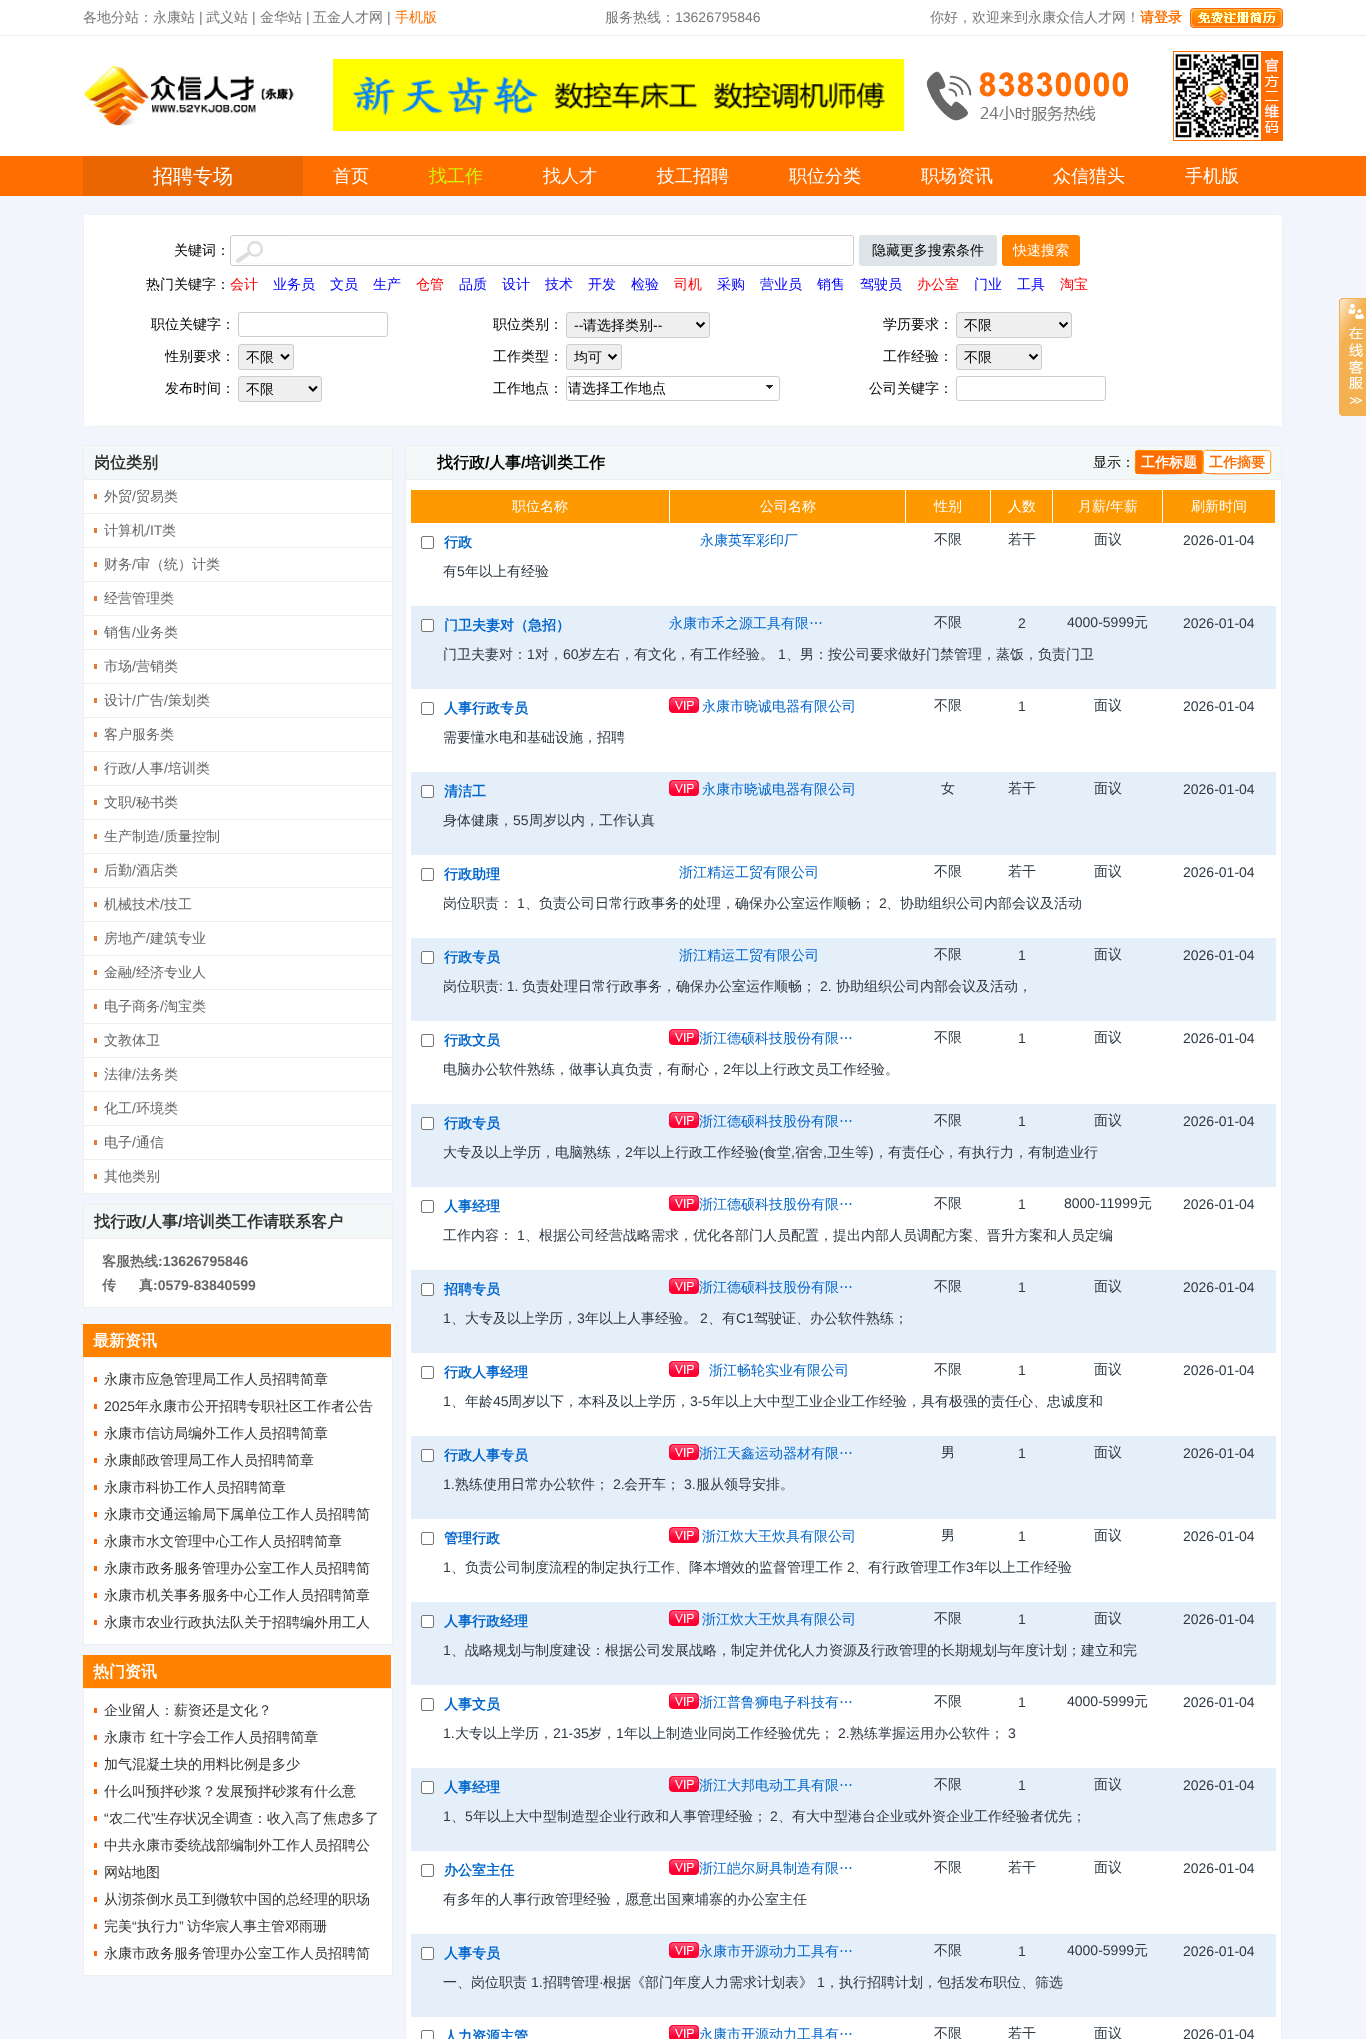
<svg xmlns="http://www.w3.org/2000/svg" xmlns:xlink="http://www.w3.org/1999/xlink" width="1366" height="2039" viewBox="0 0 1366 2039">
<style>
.cls-1{font:500 14px WenQuanYi Zen Hei;fill:#777777}
.cls-2{font:14px Liberation Sans;fill:#777777}
.cls-3{font:500 14px WenQuanYi Zen Hei;fill:#ff6e00}
.cls-4{font:bold 14px WenQuanYi Zen Hei;fill:#ff6e00}
.cls-5{font:500 20px WenQuanYi Zen Hei;fill:#ffffff}
.cls-6{font:500 18px WenQuanYi Zen Hei;fill:#ffffff}
.cls-7{font:500 18px WenQuanYi Zen Hei;fill:#d2f709}
.cls-8{font:500 14px WenQuanYi Zen Hei;fill:#000000}
.cls-9{font:500 14px WenQuanYi Zen Hei;fill:#ffffff}
.cls-10{font:500 14px WenQuanYi Zen Hei;fill:#ff0000}
.cls-11{font:500 14px WenQuanYi Zen Hei;fill:#0000ff}
.cls-12{font:14px Liberation Sans;fill:#000000}
.cls-13{font:bold 16px WenQuanYi Zen Hei;fill:#333333}
.cls-14{font:500 14px WenQuanYi Zen Hei;fill:#666666}
.cls-15{font:14px Liberation Sans;fill:#666666}
.cls-16{font:bold 16px Liberation Sans;fill:#333333}
.cls-17{font:bold 14px WenQuanYi Zen Hei;fill:#666666}
.cls-18{font:bold 14px Liberation Sans;fill:#666666}
.cls-19{font:bold 16px WenQuanYi Zen Hei;fill:#ffffff}
.cls-20{font:500 14px WenQuanYi Zen Hei;fill:#333333}
.cls-21{font:14px Liberation Sans;fill:#333333}
.cls-22{font:bold 16px WenQuanYi Zen Hei;fill:#000000}
.cls-23{font:bold 16px Liberation Sans;fill:#000000}
.cls-24{font:bold 14px WenQuanYi Zen Hei;fill:#ffffff}
.cls-25{font:14px Liberation Sans;fill:#ffffff}
.cls-26{font:bold 14px WenQuanYi Zen Hei;fill:#0066cc}
.cls-27{font:500 14px WenQuanYi Zen Hei;fill:#0066cc}
.cls-28{font:500 14px WenQuanYi Zen Hei;fill:#2e3843}
.cls-29{font:14px Liberation Sans;fill:#2e3843}
</style>
<defs>
<clipPath id="clip1"><rect x="574" y="348" width="28" height="18"/></clipPath>
</defs>
<rect width="100%" height="100%" fill="#f2f6fc"/>
<rect fill="#ffffff" x="0" y="0" width="1366" height="35"/>
<rect fill="#eeeeee" x="0" y="35" width="1366" height="1"/>
<image xlink:href="image0.png" x="1190" y="8" width="93" height="20"/>
<rect fill="#ffffff" x="0" y="36" width="1366" height="120"/>
<image xlink:href="image1.png" x="83" y="66" width="211" height="60"/>
<image xlink:href="image2.png" x="333" y="59" width="571" height="72"/>
<image xlink:href="image3.png" x="926" y="67" width="202" height="55"/>
<image xlink:href="image4.png" x="1173" y="51" width="110" height="90"/>
<rect fill="#ff6e00" x="0" y="156" width="1366" height="40"/>
<rect fill="#e96603" x="83" y="156" width="220" height="40"/>
<rect fill="none" stroke="#eeeeee" x="83.5" y="214.5" width="1199" height="212" rx="9.5"/>
<rect fill="#ffffff" x="84" y="215" width="1198" height="211"/>
<image xlink:href="image5.png" x="236" y="239" width="612" height="25"/>
<rect fill="none" stroke="#cccccc" x="230.5" y="235.5" width="623" height="30" rx="2.5"/>
<rect fill="#dde5e8" x="859" y="235" width="138" height="31" rx="3"/>
<rect fill="#ff8300" x="1002" y="235" width="78" height="31" rx="3"/>
<rect fill="none" stroke="#cccccc" x="238.5" y="312.5" width="149" height="24" rx="2.5"/>
<rect fill="#efefef" stroke="#cccccc" x="566.5" y="312.5" width="143" height="25" rx="2.5"/>
<path fill="none" stroke="#000000" stroke-width="2" d="M696.5 322.5L700.5 326.5L704.5 322.5"/>
<rect fill="#efefef" stroke="#cccccc" x="956.5" y="312.5" width="115" height="25" rx="2.5"/>
<path fill="none" stroke="#000000" stroke-width="2" d="M1059.5 322.5L1063.5 326.5L1067.5 322.5"/>
<rect fill="#efefef" stroke="#cccccc" x="238.5" y="344.5" width="55" height="25" rx="2.5"/>
<path fill="none" stroke="#000000" stroke-width="2" d="M281 354.5L285 358.5L289 354.5"/>
<rect fill="#efefef" stroke="#cccccc" x="566.5" y="344.5" width="55" height="25" rx="2.5"/>
<path fill="none" stroke="#000000" stroke-width="2" d="M608.5 354.5L612.5 358.5L616.5 354.5"/>
<rect fill="#efefef" stroke="#cccccc" x="956.5" y="344.5" width="85" height="25" rx="2.5"/>
<path fill="none" stroke="#000000" stroke-width="2" d="M1029.5 354.5L1033.5 358.5L1037.5 354.5"/>
<rect fill="#efefef" stroke="#cccccc" x="238.5" y="376.5" width="83" height="25" rx="2.5"/>
<path fill="none" stroke="#000000" stroke-width="2" d="M309 386.5L313 390.5L317 386.5"/>
<image xlink:href="image6.png" x="766" y="385" width="7" height="4"/>
<rect fill="none" stroke="#cccccc" x="566.5" y="376.5" width="213" height="24" rx="2.5"/>
<rect fill="none" stroke="#cccccc" x="956.5" y="376.5" width="149" height="24" rx="2.5"/>
<rect fill="#ffffff" x="84" y="480" width="308" height="713"/>
<rect fill="none" stroke="#eeeeee" x="83.5" y="445.5" width="309" height="748"/>
<rect fill="#f2f7f8" x="84" y="446" width="308" height="33"/>
<rect fill="#e17d3c" x="94" y="494" width="3" height="5"/>
<rect fill="#eeeeee" x="84" y="479" width="308" height="1"/>
<rect fill="#e17d3c" x="94" y="528" width="3" height="5"/>
<rect fill="#eeeeee" x="84" y="513" width="308" height="1"/>
<rect fill="#e17d3c" x="94" y="562" width="3" height="5"/>
<rect fill="#eeeeee" x="84" y="547" width="308" height="1"/>
<rect fill="#e17d3c" x="94" y="596" width="3" height="5"/>
<rect fill="#eeeeee" x="84" y="581" width="308" height="1"/>
<rect fill="#e17d3c" x="94" y="630" width="3" height="5"/>
<rect fill="#eeeeee" x="84" y="615" width="308" height="1"/>
<rect fill="#e17d3c" x="94" y="664" width="3" height="5"/>
<rect fill="#eeeeee" x="84" y="649" width="308" height="1"/>
<rect fill="#e17d3c" x="94" y="698" width="3" height="5"/>
<rect fill="#eeeeee" x="84" y="683" width="308" height="1"/>
<rect fill="#e17d3c" x="94" y="732" width="3" height="5"/>
<rect fill="#eeeeee" x="84" y="717" width="308" height="1"/>
<rect fill="#e17d3c" x="94" y="766" width="3" height="5"/>
<rect fill="#eeeeee" x="84" y="751" width="308" height="1"/>
<rect fill="#e17d3c" x="94" y="800" width="3" height="5"/>
<rect fill="#eeeeee" x="84" y="785" width="308" height="1"/>
<rect fill="#e17d3c" x="94" y="834" width="3" height="5"/>
<rect fill="#eeeeee" x="84" y="819" width="308" height="1"/>
<rect fill="#e17d3c" x="94" y="868" width="3" height="5"/>
<rect fill="#eeeeee" x="84" y="853" width="308" height="1"/>
<rect fill="#e17d3c" x="94" y="902" width="3" height="5"/>
<rect fill="#eeeeee" x="84" y="887" width="308" height="1"/>
<rect fill="#e17d3c" x="94" y="936" width="3" height="5"/>
<rect fill="#eeeeee" x="84" y="921" width="308" height="1"/>
<rect fill="#e17d3c" x="94" y="970" width="3" height="5"/>
<rect fill="#eeeeee" x="84" y="955" width="308" height="1"/>
<rect fill="#e17d3c" x="94" y="1004" width="3" height="5"/>
<rect fill="#eeeeee" x="84" y="989" width="308" height="1"/>
<rect fill="#e17d3c" x="94" y="1038" width="3" height="5"/>
<rect fill="#eeeeee" x="84" y="1023" width="308" height="1"/>
<rect fill="#e17d3c" x="94" y="1072" width="3" height="5"/>
<rect fill="#eeeeee" x="84" y="1057" width="308" height="1"/>
<rect fill="#e17d3c" x="94" y="1106" width="3" height="5"/>
<rect fill="#eeeeee" x="84" y="1091" width="308" height="1"/>
<rect fill="#e17d3c" x="94" y="1140" width="3" height="5"/>
<rect fill="#eeeeee" x="84" y="1125" width="308" height="1"/>
<rect fill="#e17d3c" x="94" y="1174" width="3" height="5"/>
<rect fill="#eeeeee" x="84" y="1159" width="308" height="1"/>
<rect fill="#ffffff" x="84" y="1239" width="308" height="68"/>
<rect fill="none" stroke="#eeeeee" x="83.5" y="1204.5" width="309" height="103"/>
<rect fill="#f2f7f8" x="84" y="1205" width="308" height="33"/>
<rect fill="#eeeeee" x="84" y="1238" width="308" height="1"/>
<rect fill="#ffffff" x="84" y="1324" width="309" height="320"/>
<rect fill="#ff8300" x="83" y="1324" width="308" height="33"/>
<rect fill="none" stroke="#eeeeee" x="83.5" y="1357.5" width="309" height="287"/>
<rect fill="#ff6600" x="94" y="1377" width="3" height="5"/>
<rect fill="#ff6600" x="94" y="1404" width="3" height="5"/>
<rect fill="#ff6600" x="94" y="1431" width="3" height="5"/>
<rect fill="#ff6600" x="94" y="1458" width="3" height="5"/>
<rect fill="#ff6600" x="94" y="1485" width="3" height="5"/>
<rect fill="#ff6600" x="94" y="1512" width="3" height="5"/>
<rect fill="#ff6600" x="94" y="1539" width="3" height="5"/>
<rect fill="#ff6600" x="94" y="1566" width="3" height="5"/>
<rect fill="#ff6600" x="94" y="1593" width="3" height="5"/>
<rect fill="#ff6600" x="94" y="1620" width="3" height="5"/>
<rect fill="#ffffff" x="84" y="1655" width="309" height="320"/>
<rect fill="#ff8300" x="83" y="1655" width="308" height="33"/>
<rect fill="none" stroke="#eeeeee" x="83.5" y="1688.5" width="309" height="287"/>
<rect fill="#ff6600" x="94" y="1708" width="3" height="5"/>
<rect fill="#ff6600" x="94" y="1735" width="3" height="5"/>
<rect fill="#ff6600" x="94" y="1762" width="3" height="5"/>
<rect fill="#ff6600" x="94" y="1789" width="3" height="5"/>
<rect fill="#ff6600" x="94" y="1816" width="3" height="5"/>
<rect fill="#ff6600" x="94" y="1843" width="3" height="5"/>
<rect fill="#ff6600" x="94" y="1870" width="3" height="5"/>
<rect fill="#ff6600" x="94" y="1897" width="3" height="5"/>
<rect fill="#ff6600" x="94" y="1924" width="3" height="5"/>
<rect fill="#ff6600" x="94" y="1951" width="3" height="5"/>
<rect fill="#ffffff" x="406" y="480" width="875" height="1559"/>
<rect fill="none" stroke="#eeeeee" x="405.5" y="445.5" width="876" height="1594"/>
<rect fill="#f2f7f8" x="406" y="446" width="875" height="33"/>
<rect fill="#eeeeee" x="406" y="479" width="875" height="1"/>
<rect fill="#ff6e00" x="1135" y="450" width="68" height="24" rx="3"/>
<path fill="none" stroke="#ff6e00" d="M1202 473L1200 473.5H1189.5C1183.5 473.5 1138.5 474.5 1136.5 473H1136"/>
<path fill="none" stroke="#fe9603" d="M1136 473C1134.5 471 1135.5 464 1135.5 462C1135.5 448 1133.5 450.5 1148.5 450.5H1189.5C1206 450.5 1202.5 448.5 1202.5 465C1202.5 467 1203.5 471 1202 473"/>
<rect fill="#ffffff" x="1203" y="450" width="68" height="24" rx="3"/>
<path fill="none" stroke="#ff6e00" d="M1270 473L1268 473.5H1257.5C1251.5 473.5 1206.5 474.5 1204.5 473H1204"/>
<path fill="none" stroke="#fe9603" d="M1204 473C1202.5 471 1203.5 464 1203.5 462C1203.5 448 1201.5 450.5 1216.5 450.5H1257.5C1274 450.5 1270.5 448.5 1270.5 465C1270.5 467 1271.5 471 1270 473"/>
<rect fill="#ff9900" x="411" y="490" width="258" height="33"/>
<rect fill="#ff9900" x="670" y="490" width="235" height="33"/>
<rect fill="#ff9900" x="906" y="490" width="84" height="33"/>
<rect fill="#ff9900" x="991" y="490" width="61" height="33"/>
<rect fill="#ff9900" x="1053" y="490" width="109" height="33"/>
<rect fill="#ff9900" x="1163" y="490" width="112" height="33"/>
<rect fill="none" stroke="#767676" x="421.5" y="536.5" width="12" height="12" rx="1.5"/>
<rect fill="#e5effa" x="411" y="606" width="865" height="83"/>
<rect fill="#ffffff" stroke="#767676" x="421.5" y="619.5" width="12" height="12" rx="1.5"/>
<rect fill="none" stroke="#767676" x="421.5" y="702.5" width="12" height="12" rx="1.5"/>
<image xlink:href="image7.png" x="669" y="697" width="30" height="16"/>
<rect fill="#e5effa" x="411" y="772" width="865" height="83"/>
<rect fill="#ffffff" stroke="#767676" x="421.5" y="785.5" width="12" height="12" rx="1.5"/>
<image xlink:href="image8.png" x="669" y="780" width="30" height="16"/>
<rect fill="none" stroke="#767676" x="421.5" y="868.5" width="12" height="12" rx="1.5"/>
<rect fill="#e5effa" x="411" y="938" width="865" height="83"/>
<rect fill="#ffffff" stroke="#767676" x="421.5" y="951.5" width="12" height="12" rx="1.5"/>
<rect fill="none" stroke="#767676" x="421.5" y="1034.5" width="12" height="12" rx="1.5"/>
<image xlink:href="image7.png" x="669" y="1029" width="30" height="16"/>
<rect fill="#e5effa" x="411" y="1104" width="865" height="83"/>
<rect fill="#ffffff" stroke="#767676" x="421.5" y="1117.5" width="12" height="12" rx="1.5"/>
<image xlink:href="image8.png" x="669" y="1112" width="30" height="16"/>
<rect fill="none" stroke="#767676" x="421.5" y="1200.5" width="12" height="12" rx="1.5"/>
<image xlink:href="image7.png" x="669" y="1195" width="30" height="16"/>
<rect fill="#e5effa" x="411" y="1270" width="865" height="83"/>
<rect fill="#ffffff" stroke="#767676" x="421.5" y="1283.5" width="12" height="12" rx="1.5"/>
<image xlink:href="image8.png" x="669" y="1278" width="30" height="16"/>
<rect fill="none" stroke="#767676" x="421.5" y="1366.5" width="12" height="12" rx="1.5"/>
<image xlink:href="image7.png" x="669" y="1361" width="30" height="16"/>
<rect fill="#e5effa" x="411" y="1436" width="865" height="83"/>
<rect fill="#ffffff" stroke="#767676" x="421.5" y="1449.5" width="12" height="12" rx="1.5"/>
<image xlink:href="image8.png" x="669" y="1444" width="30" height="16"/>
<rect fill="none" stroke="#767676" x="421.5" y="1532.5" width="12" height="12" rx="1.5"/>
<image xlink:href="image7.png" x="669" y="1527" width="30" height="16"/>
<rect fill="#e5effa" x="411" y="1602" width="865" height="83"/>
<rect fill="#ffffff" stroke="#767676" x="421.5" y="1615.5" width="12" height="12" rx="1.5"/>
<image xlink:href="image8.png" x="669" y="1610" width="30" height="16"/>
<rect fill="none" stroke="#767676" x="421.5" y="1698.5" width="12" height="12" rx="1.5"/>
<image xlink:href="image7.png" x="669" y="1693" width="30" height="16"/>
<rect fill="#e5effa" x="411" y="1768" width="865" height="83"/>
<rect fill="#ffffff" stroke="#767676" x="421.5" y="1781.5" width="12" height="12" rx="1.5"/>
<image xlink:href="image8.png" x="669" y="1776" width="30" height="16"/>
<rect fill="none" stroke="#767676" x="421.5" y="1864.5" width="12" height="12" rx="1.5"/>
<image xlink:href="image7.png" x="669" y="1859" width="30" height="16"/>
<rect fill="#e5effa" x="411" y="1934" width="865" height="83"/>
<rect fill="#ffffff" stroke="#767676" x="421.5" y="1947.5" width="12" height="12" rx="1.5"/>
<image xlink:href="image8.png" x="669" y="1942" width="30" height="16"/>
<rect fill="none" stroke="#767676" x="421.5" y="2030.5" width="12" height="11" rx="1.5"/>
<image xlink:href="image9.png" x="669" y="2025" width="30" height="14"/>
<image xlink:href="image10.png" x="1339" y="298" width="27" height="118"/>
<text class="cls-1" x="83" y="22">各地分站：永康站</text>
<text class="cls-2" x="199" y="22">|</text>
<text class="cls-1" x="206" y="22">武义站</text>
<text class="cls-2" x="252" y="22">|</text>
<text class="cls-1" x="260" y="22">金华站</text>
<text class="cls-2" x="306" y="22">|</text>
<text class="cls-1" x="313" y="22">五金人才网</text>
<text class="cls-2" x="387" y="22">|</text>
<text class="cls-3" x="395" y="22">手机版</text>
<text class="cls-1" x="605" y="22">服务热线：</text>
<text class="cls-2" x="675" y="22">13626795846</text>
<text class="cls-1" x="930" y="22">你好，欢迎来到永康众信人才网！</text>
<text class="cls-4" x="1140" y="22">请登录</text>
<text class="cls-5" x="153" y="183">招聘专场</text>
<text class="cls-6" x="333" y="182">首页</text>
<text class="cls-7" x="429" y="182">找工作</text>
<text class="cls-6" x="543" y="182">找人才</text>
<text class="cls-6" x="657" y="182">技工招聘</text>
<text class="cls-6" x="789" y="182">职位分类</text>
<text class="cls-6" x="921" y="182">职场资讯</text>
<text class="cls-6" x="1053" y="182">众信猎头</text>
<text class="cls-6" x="1185" y="182">手机版</text>
<text class="cls-8" x="174" y="255">关键词：</text>
<text class="cls-8" x="872" y="255">隐藏更多搜索条件</text>
<text class="cls-9" x="1013" y="255">快速搜索</text>
<text class="cls-8" x="146" y="289">热门关键字：</text>
<text class="cls-10" x="230" y="289">会计</text>
<text class="cls-11" x="273" y="289">业务员</text>
<text class="cls-11" x="330" y="289">文员</text>
<text class="cls-11" x="373" y="289">生产</text>
<text class="cls-10" x="416" y="289">仓管</text>
<text class="cls-11" x="459" y="289">品质</text>
<text class="cls-11" x="502" y="289">设计</text>
<text class="cls-11" x="545" y="289">技术</text>
<text class="cls-11" x="588" y="289">开发</text>
<text class="cls-11" x="631" y="289">检验</text>
<text class="cls-10" x="674" y="289">司机</text>
<text class="cls-11" x="717" y="289">采购</text>
<text class="cls-11" x="760" y="289">营业员</text>
<text class="cls-11" x="817" y="289">销售</text>
<text class="cls-11" x="860" y="289">驾驶员</text>
<text class="cls-10" x="917" y="289">办公室</text>
<text class="cls-11" x="974" y="289">门业</text>
<text class="cls-11" x="1017" y="289">工具</text>
<text class="cls-10" x="1060" y="289">淘宝</text>
<text class="cls-8" x="151" y="329">职位关键字：</text>
<text class="cls-8" x="493" y="329">职位类别：</text>
<text class="cls-12" x="574" y="330">--</text>
<text class="cls-8" x="583" y="330">请选择类别</text>
<text class="cls-12" x="653" y="330">--</text>
<text class="cls-8" x="883" y="329">学历要求：</text>
<text class="cls-8" x="964" y="330">不限</text>
<text class="cls-8" x="165" y="361">性别要求：</text>
<text class="cls-8" x="246" y="362">不限</text>
<text class="cls-8" x="493" y="361">工作类型：</text>
<g clip-path="url(#clip1)">
<text class="cls-8" x="574" y="362">均可</text>
</g>
<text class="cls-8" x="883" y="361">工作经验：</text>
<text class="cls-8" x="964" y="362">不限</text>
<text class="cls-8" x="165" y="393">发布时间：</text>
<text class="cls-8" x="246" y="394">不限</text>
<text class="cls-8" x="493" y="393">工作地点：</text>
<text class="cls-8" x="568" y="393">请选择工作地点</text>
<text class="cls-8" x="869" y="393">公司关键字：</text>
<text class="cls-13" x="94" y="468">岗位类别</text>
<text class="cls-14" x="104" y="501">外贸</text>
<text class="cls-15" x="132" y="501">/</text>
<text class="cls-14" x="136" y="501">贸易类</text>
<text class="cls-14" x="104" y="535">计算机</text>
<text class="cls-15" x="146" y="535">/IT</text>
<text class="cls-14" x="162" y="535">类</text>
<text class="cls-14" x="104" y="569">财务</text>
<text class="cls-15" x="132" y="569">/</text>
<text class="cls-14" x="136" y="569">审（统）计类</text>
<text class="cls-14" x="104" y="603">经营管理类</text>
<text class="cls-14" x="104" y="637">销售</text>
<text class="cls-15" x="132" y="637">/</text>
<text class="cls-14" x="136" y="637">业务类</text>
<text class="cls-14" x="104" y="671">市场</text>
<text class="cls-15" x="132" y="671">/</text>
<text class="cls-14" x="136" y="671">营销类</text>
<text class="cls-14" x="104" y="705">设计</text>
<text class="cls-15" x="132" y="705">/</text>
<text class="cls-14" x="136" y="705">广告</text>
<text class="cls-15" x="164" y="705">/</text>
<text class="cls-14" x="168" y="705">策划类</text>
<text class="cls-14" x="104" y="739">客户服务类</text>
<text class="cls-14" x="104" y="773">行政</text>
<text class="cls-15" x="132" y="773">/</text>
<text class="cls-14" x="136" y="773">人事</text>
<text class="cls-15" x="164" y="773">/</text>
<text class="cls-14" x="168" y="773">培训类</text>
<text class="cls-14" x="104" y="807">文职</text>
<text class="cls-15" x="132" y="807">/</text>
<text class="cls-14" x="136" y="807">秘书类</text>
<text class="cls-14" x="104" y="841">生产制造</text>
<text class="cls-15" x="160" y="841">/</text>
<text class="cls-14" x="164" y="841">质量控制</text>
<text class="cls-14" x="104" y="875">后勤</text>
<text class="cls-15" x="132" y="875">/</text>
<text class="cls-14" x="136" y="875">酒店类</text>
<text class="cls-14" x="104" y="909">机械技术</text>
<text class="cls-15" x="160" y="909">/</text>
<text class="cls-14" x="164" y="909">技工</text>
<text class="cls-14" x="104" y="943">房地产</text>
<text class="cls-15" x="146" y="943">/</text>
<text class="cls-14" x="150" y="943">建筑专业</text>
<text class="cls-14" x="104" y="977">金融</text>
<text class="cls-15" x="132" y="977">/</text>
<text class="cls-14" x="136" y="977">经济专业人</text>
<text class="cls-14" x="104" y="1011">电子商务</text>
<text class="cls-15" x="160" y="1011">/</text>
<text class="cls-14" x="164" y="1011">淘宝类</text>
<text class="cls-14" x="104" y="1045">文教体卫</text>
<text class="cls-14" x="104" y="1079">法律</text>
<text class="cls-15" x="132" y="1079">/</text>
<text class="cls-14" x="136" y="1079">法务类</text>
<text class="cls-14" x="104" y="1113">化工</text>
<text class="cls-15" x="132" y="1113">/</text>
<text class="cls-14" x="136" y="1113">环境类</text>
<text class="cls-14" x="104" y="1147">电子</text>
<text class="cls-15" x="132" y="1147">/</text>
<text class="cls-14" x="136" y="1147">通信</text>
<text class="cls-14" x="104" y="1181">其他类别</text>
<text class="cls-13" x="94" y="1227">找行政</text>
<text class="cls-16" x="142" y="1227">/</text>
<text class="cls-13" x="146" y="1227">人事</text>
<text class="cls-16" x="178" y="1227">/</text>
<text class="cls-13" x="183" y="1227">培训类工作请联系客户</text>
<text class="cls-17" x="102" y="1266">客服热线</text>
<text class="cls-18" x="158" y="1266">:13626795846</text>
<text class="cls-17" x="102" y="1290">传</text>
<text class="cls-17" x="139" y="1290">真</text>
<text class="cls-18" x="153" y="1290">:0579-83840599</text>
<text class="cls-19" x="93" y="1346">最新资讯</text>
<text class="cls-20" x="104" y="1384">永康市应急管理局工作人员招聘简章</text>
<text class="cls-21" x="104" y="1411">2025</text>
<text class="cls-20" x="135" y="1411">年永康市公开招聘专职社区工作者公告</text>
<text class="cls-20"><tspan x="104" y="1438">永康市信访局编外工作人员招聘简章</tspan><tspan x="104" y="1465">永康邮政管理局工作人员招聘简章</tspan><tspan x="104" y="1492">永康市科协工作人员招聘简章</tspan><tspan x="104" y="1519">永康市交通运输局下属单位工作人员招聘简</tspan><tspan x="104" y="1546">永康市水文管理中心工作人员招聘简章</tspan><tspan x="104" y="1573">永康市政务服务管理办公室工作人员招聘简</tspan><tspan x="104" y="1600">永康市机关事务服务中心工作人员招聘简章</tspan><tspan x="104" y="1627">永康市农业行政执法队关于招聘编外用工人</tspan></text>
<text class="cls-19" x="93" y="1677">热门资讯</text>
<text class="cls-20"><tspan x="104" y="1715">企业留人：薪资还是文化？</tspan><tspan x="104" y="1742">永康市 红十字会工作人员招聘简章</tspan><tspan x="104" y="1769">加气混凝土块的用料比例是多少</tspan><tspan x="104" y="1796">什么叫预拌砂浆？发展预拌砂浆有什么意</tspan></text>
<text class="cls-21" x="104" y="1823">“</text>
<text class="cls-20" x="109" y="1823">农二代</text>
<text class="cls-21" x="151" y="1823">”</text>
<text class="cls-20" x="155" y="1823">生存状况全调查：收入高了焦虑多了</text>
<text class="cls-20"><tspan x="104" y="1850">中共永康市委统战部编制外工作人员招聘公</tspan><tspan x="104" y="1877">网站地图</tspan><tspan x="104" y="1904">从沏茶倒水员工到微软中国的总经理的职场</tspan><tspan x="104" y="1931">完美</tspan></text>
<text class="cls-21" x="132" y="1931">“</text>
<text class="cls-20" x="137" y="1931">执行力</text>
<text class="cls-21" x="179" y="1931">”</text>
<text class="cls-20" x="187" y="1931">访华宸人事主管邓雨珊</text>
<text class="cls-20" x="104" y="1958">永康市政务服务管理办公室工作人员招聘简</text>
<text class="cls-22" x="437" y="468">找行政</text>
<text class="cls-23" x="485" y="468">/</text>
<text class="cls-22" x="489" y="468">人事</text>
<text class="cls-23" x="521" y="468">/</text>
<text class="cls-22" x="525" y="468">培训类工作</text>
<text class="cls-8" x="1093" y="467">显示：</text>
<text class="cls-24" x="1141" y="467">工作标题</text>
<text class="cls-4" x="1209" y="467">工作摘要</text>
<text class="cls-9" x="512" y="511">职位名称</text>
<text class="cls-9" x="760" y="511">公司名称</text>
<text class="cls-9" x="934" y="511">性别</text>
<text class="cls-9" x="1008" y="511">人数</text>
<text class="cls-9" x="1078" y="511">月薪</text>
<text class="cls-25" x="1106" y="511">/</text>
<text class="cls-9" x="1110" y="511">年薪</text>
<text class="cls-9" x="1191" y="511">刷新时间</text>
<text class="cls-26" x="444" y="547">行政</text>
<text class="cls-27" x="700" y="545">永康英军彩印厂</text>
<text class="cls-28" x="934" y="544">不限</text>
<text class="cls-28" x="1008" y="544">若干</text>
<text class="cls-28" x="1094" y="544">面议</text>
<text class="cls-29" x="1183" y="545">2026-01-04</text>
<text class="cls-28" x="443" y="576">有</text>
<text class="cls-29" x="457" y="576">5</text>
<text class="cls-28" x="465" y="576">年以上有经验</text>
<text class="cls-26" x="444" y="630">门卫夫妻对（急招）</text>
<text class="cls-27" x="669" y="628">永康市禾之源工具有限…</text>
<text class="cls-28" x="934" y="627">不限</text>
<text class="cls-29" x="1018" y="628">2</text>
<text class="cls-29" x="1067" y="627">4000-5999</text>
<text class="cls-28" x="1134" y="627">元</text>
<text class="cls-29" x="1183" y="628">2026-01-04</text>
<text class="cls-28" x="443" y="659">门卫夫妻对：</text>
<text class="cls-29" x="527" y="659">1</text>
<text class="cls-28" x="535" y="659">对，</text>
<text class="cls-29" x="563" y="659">60</text>
<text class="cls-28" x="578" y="659">岁左右，有文化，有工作经验。</text>
<text class="cls-29" x="778" y="659">1</text>
<text class="cls-28" x="786" y="659">、男：按公司要求做好门禁管理，蒸饭，负责门卫</text>
<text class="cls-26" x="444" y="713">人事行政专员</text>
<text class="cls-27" x="702" y="711">永康市晓诚电器有限公司</text>
<text class="cls-28" x="934" y="710">不限</text>
<text class="cls-29" x="1018" y="711">1</text>
<text class="cls-28" x="1094" y="710">面议</text>
<text class="cls-29" x="1183" y="711">2026-01-04</text>
<text class="cls-28" x="443" y="742">需要懂水电和基础设施，招聘</text>
<text class="cls-26" x="444" y="796">清洁工</text>
<text class="cls-27" x="702" y="794">永康市晓诚电器有限公司</text>
<text class="cls-28" x="941" y="793">女</text>
<text class="cls-28" x="1008" y="793">若干</text>
<text class="cls-28" x="1094" y="793">面议</text>
<text class="cls-29" x="1183" y="794">2026-01-04</text>
<text class="cls-28" x="443" y="825">身体健康，</text>
<text class="cls-29" x="513" y="825">55</text>
<text class="cls-28" x="529" y="825">周岁以内，工作认真</text>
<text class="cls-26" x="444" y="879">行政助理</text>
<text class="cls-27" x="679" y="877">浙江精运工贸有限公司</text>
<text class="cls-28" x="934" y="876">不限</text>
<text class="cls-28" x="1008" y="876">若干</text>
<text class="cls-28" x="1094" y="876">面议</text>
<text class="cls-29" x="1183" y="877">2026-01-04</text>
<text class="cls-28" x="443" y="908">岗位职责：</text>
<text class="cls-29" x="517" y="908">1</text>
<text class="cls-28" x="525" y="908">、负责公司日常行政事务的处理，确保办公室运作顺畅；</text>
<text class="cls-29" x="879" y="908">2</text>
<text class="cls-28" x="886" y="908">、协助组织公司内部会议及活动</text>
<text class="cls-26" x="444" y="962">行政专员</text>
<text class="cls-27" x="679" y="960">浙江精运工贸有限公司</text>
<text class="cls-28" x="934" y="959">不限</text>
<text class="cls-29" x="1018" y="960">1</text>
<text class="cls-28" x="1094" y="959">面议</text>
<text class="cls-29" x="1183" y="960">2026-01-04</text>
<text class="cls-28" x="443" y="991">岗位职责</text>
<text class="cls-29" x="499" y="991">: 1.</text>
<text class="cls-28" x="522" y="991">负责处理日常行政事务，确保办公室运作顺畅；</text>
<text class="cls-29" x="820" y="991">2.</text>
<text class="cls-28" x="836" y="991">协助组织公司内部会议及活动，</text>
<text class="cls-26" x="444" y="1045">行政文员</text>
<text class="cls-27" x="699" y="1043">浙江德硕科技股份有限…</text>
<text class="cls-28" x="934" y="1042">不限</text>
<text class="cls-29" x="1018" y="1043">1</text>
<text class="cls-28" x="1094" y="1042">面议</text>
<text class="cls-29" x="1183" y="1043">2026-01-04</text>
<text class="cls-28" x="443" y="1074">电脑办公软件熟练，做事认真负责，有耐心，</text>
<text class="cls-29" x="723" y="1074">2</text>
<text class="cls-28" x="731" y="1074">年以上行政文员工作经验。</text>
<text class="cls-26" x="444" y="1128">行政专员</text>
<text class="cls-27" x="699" y="1126">浙江德硕科技股份有限…</text>
<text class="cls-28" x="934" y="1125">不限</text>
<text class="cls-29" x="1018" y="1126">1</text>
<text class="cls-28" x="1094" y="1125">面议</text>
<text class="cls-29" x="1183" y="1126">2026-01-04</text>
<text class="cls-28" x="443" y="1157">大专及以上学历，电脑熟练，</text>
<text class="cls-29" x="625" y="1157">2</text>
<text class="cls-28" x="633" y="1157">年以上行政工作经验</text>
<text class="cls-29" x="759" y="1157">(</text>
<text class="cls-28" x="763" y="1157">食堂</text>
<text class="cls-29" x="791" y="1157">,</text>
<text class="cls-28" x="795" y="1157">宿舍</text>
<text class="cls-29" x="823" y="1157">,</text>
<text class="cls-28" x="827" y="1157">卫生等</text>
<text class="cls-29" x="869" y="1157">)</text>
<text class="cls-28" x="874" y="1157">，有责任心，有执行力，有制造业行</text>
<text class="cls-26" x="444" y="1211">人事经理</text>
<text class="cls-27" x="699" y="1209">浙江德硕科技股份有限…</text>
<text class="cls-28" x="934" y="1208">不限</text>
<text class="cls-29" x="1018" y="1209">1</text>
<text class="cls-29" x="1064" y="1208">8000-11999</text>
<text class="cls-28" x="1138" y="1208">元</text>
<text class="cls-29" x="1183" y="1209">2026-01-04</text>
<text class="cls-28" x="443" y="1240">工作内容：</text>
<text class="cls-29" x="517" y="1240">1</text>
<text class="cls-28" x="525" y="1240">、根据公司经营战略需求，优化各部门人员配置，提出内部人员调配方案、晋升方案和人员定编</text>
<text class="cls-26" x="444" y="1294">招聘专员</text>
<text class="cls-27" x="699" y="1292">浙江德硕科技股份有限…</text>
<text class="cls-28" x="934" y="1291">不限</text>
<text class="cls-29" x="1018" y="1292">1</text>
<text class="cls-28" x="1094" y="1291">面议</text>
<text class="cls-29" x="1183" y="1292">2026-01-04</text>
<text class="cls-29" x="443" y="1323">1</text>
<text class="cls-28" x="451" y="1323">、大专及以上学历，</text>
<text class="cls-29" x="577" y="1323">3</text>
<text class="cls-28" x="585" y="1323">年以上人事经验。</text>
<text class="cls-29" x="700" y="1323">2</text>
<text class="cls-28" x="708" y="1323">、有</text>
<text class="cls-29" x="736" y="1323">C1</text>
<text class="cls-28" x="754" y="1323">驾驶证、办公软件熟练；</text>
<text class="cls-26" x="444" y="1377">行政人事经理</text>
<text class="cls-27" x="709" y="1375">浙江畅轮实业有限公司</text>
<text class="cls-28" x="934" y="1374">不限</text>
<text class="cls-29" x="1018" y="1375">1</text>
<text class="cls-28" x="1094" y="1374">面议</text>
<text class="cls-29" x="1183" y="1375">2026-01-04</text>
<text class="cls-29" x="443" y="1406">1</text>
<text class="cls-28" x="451" y="1406">、年龄</text>
<text class="cls-29" x="493" y="1406">45</text>
<text class="cls-28" x="508" y="1406">周岁以下，本科及以上学历，</text>
<text class="cls-29" x="690" y="1406">3-5</text>
<text class="cls-28" x="711" y="1406">年以上大中型工业企业工作经验，具有极强的责任心、忠诚度和</text>
<text class="cls-26" x="444" y="1460">行政人事专员</text>
<text class="cls-27" x="699" y="1458">浙江天鑫运动器材有限…</text>
<text class="cls-28" x="941" y="1457">男</text>
<text class="cls-29" x="1018" y="1458">1</text>
<text class="cls-28" x="1094" y="1457">面议</text>
<text class="cls-29" x="1183" y="1458">2026-01-04</text>
<text class="cls-29" x="443" y="1489">1.</text>
<text class="cls-28" x="455" y="1489">熟练使用日常办公软件；</text>
<text class="cls-29" x="613" y="1489">2.</text>
<text class="cls-28" x="624" y="1489">会开车；</text>
<text class="cls-29" x="684" y="1489">3.</text>
<text class="cls-28" x="696" y="1489">服从领导安排。</text>
<text class="cls-26" x="444" y="1543">管理行政</text>
<text class="cls-27" x="702" y="1541">浙江炊大王炊具有限公司</text>
<text class="cls-28" x="941" y="1540">男</text>
<text class="cls-29" x="1018" y="1541">1</text>
<text class="cls-28" x="1094" y="1540">面议</text>
<text class="cls-29" x="1183" y="1541">2026-01-04</text>
<text class="cls-29" x="443" y="1572">1</text>
<text class="cls-28" x="451" y="1572">、负责公司制度流程的制定执行工作、降本增效的监督管理工作</text>
<text class="cls-29" x="847" y="1572">2</text>
<text class="cls-28" x="854" y="1572">、有行政管理工作</text>
<text class="cls-29" x="966" y="1572">3</text>
<text class="cls-28" x="974" y="1572">年以上工作经验</text>
<text class="cls-26" x="444" y="1626">人事行政经理</text>
<text class="cls-27" x="702" y="1624">浙江炊大王炊具有限公司</text>
<text class="cls-28" x="934" y="1623">不限</text>
<text class="cls-29" x="1018" y="1624">1</text>
<text class="cls-28" x="1094" y="1623">面议</text>
<text class="cls-29" x="1183" y="1624">2026-01-04</text>
<text class="cls-29" x="443" y="1655">1</text>
<text class="cls-28" x="451" y="1655">、战略规划与制度建设：根据公司发展战略，制定并优化人力资源及行政管理的长期规划与年度计划；建立和完</text>
<text class="cls-26" x="444" y="1709">人事文员</text>
<text class="cls-27" x="699" y="1707">浙江普鲁狮电子科技有…</text>
<text class="cls-28" x="934" y="1706">不限</text>
<text class="cls-29" x="1018" y="1707">1</text>
<text class="cls-29" x="1067" y="1706">4000-5999</text>
<text class="cls-28" x="1134" y="1706">元</text>
<text class="cls-29" x="1183" y="1707">2026-01-04</text>
<text class="cls-29" x="443" y="1738">1.</text>
<text class="cls-28" x="455" y="1738">大专以上学历，</text>
<text class="cls-29" x="553" y="1738">21-35</text>
<text class="cls-28" x="588" y="1738">岁，</text>
<text class="cls-29" x="616" y="1738">1</text>
<text class="cls-28" x="624" y="1738">年以上制造业同岗工作经验优先；</text>
<text class="cls-29" x="838" y="1738">2.</text>
<text class="cls-28" x="850" y="1738">熟练掌握运用办公软件；</text>
<text class="cls-29" x="1008" y="1738">3</text>
<text class="cls-26" x="444" y="1792">人事经理</text>
<text class="cls-27" x="699" y="1790">浙江大邦电动工具有限…</text>
<text class="cls-28" x="934" y="1789">不限</text>
<text class="cls-29" x="1018" y="1790">1</text>
<text class="cls-28" x="1094" y="1789">面议</text>
<text class="cls-29" x="1183" y="1790">2026-01-04</text>
<text class="cls-29" x="443" y="1821">1</text>
<text class="cls-28" x="451" y="1821">、</text>
<text class="cls-29" x="465" y="1821">5</text>
<text class="cls-28" x="473" y="1821">年以上大中型制造型企业行政和人事管理经验；</text>
<text class="cls-29" x="770" y="1821">2</text>
<text class="cls-28" x="778" y="1821">、有大中型港台企业或外资企业工作经验者优先；</text>
<text class="cls-26" x="444" y="1875">办公室主任</text>
<text class="cls-27" x="699" y="1873">浙江皑尔厨具制造有限…</text>
<text class="cls-28" x="934" y="1872">不限</text>
<text class="cls-28" x="1008" y="1872">若干</text>
<text class="cls-28" x="1094" y="1872">面议</text>
<text class="cls-29" x="1183" y="1873">2026-01-04</text>
<text class="cls-28" x="443" y="1904">有多年的人事行政管理经验，愿意出国柬埔寨的办公室主任</text>
<text class="cls-26" x="444" y="1958">人事专员</text>
<text class="cls-27" x="699" y="1956">永康市开源动力工具有…</text>
<text class="cls-28" x="934" y="1955">不限</text>
<text class="cls-29" x="1018" y="1956">1</text>
<text class="cls-29" x="1067" y="1955">4000-5999</text>
<text class="cls-28" x="1134" y="1955">元</text>
<text class="cls-29" x="1183" y="1956">2026-01-04</text>
<text class="cls-28" x="443" y="1987">一、岗位职责</text>
<text class="cls-29" x="531" y="1987">1.</text>
<text class="cls-28" x="543" y="1987">招聘管理</text>
<text class="cls-29" x="599" y="1987">·</text>
<text class="cls-28" x="603" y="1987">根据《部门年度人力需求计划表》</text>
<text class="cls-29" x="817" y="1987">1</text>
<text class="cls-28" x="825" y="1987">，执行招聘计划，包括发布职位、筛选</text>
<text class="cls-26" x="444" y="2041">人力资源主管</text>
<text class="cls-27" x="699" y="2039">永康市开源动力工具有…</text>
<text class="cls-28" x="934" y="2038">不限</text>
<text class="cls-28" x="1008" y="2038">若干</text>
<text class="cls-28" x="1094" y="2038">面议</text>
<text class="cls-29" x="1183" y="2039">2026-01-04</text>
</svg>
